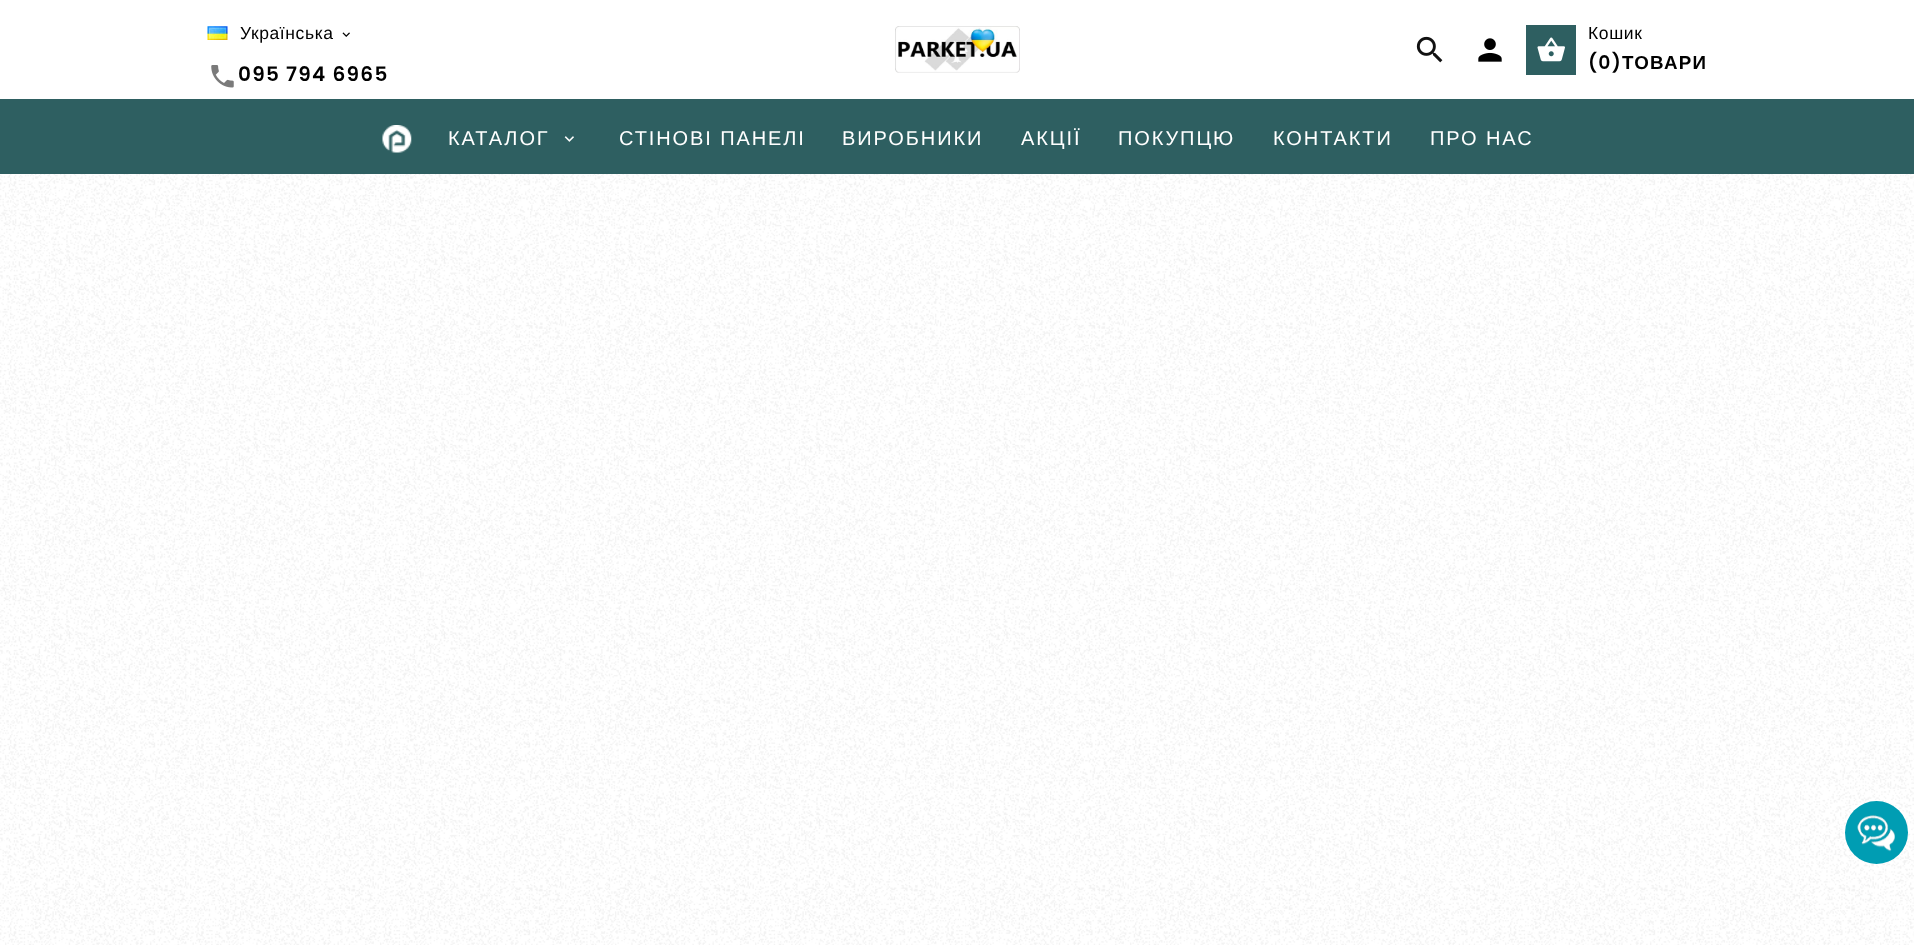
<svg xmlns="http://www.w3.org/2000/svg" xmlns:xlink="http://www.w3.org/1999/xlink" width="1914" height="945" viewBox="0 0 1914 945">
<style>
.cls-1{font:17.5px Liberation Sans;letter-spacing:0.6px;fill:#000000}
.cls-2{font:600 20px Poppins;letter-spacing:1.25px;fill:#000000}
.cls-3{font:600 18.75px Poppins;letter-spacing:1.25px;fill:#000000}
.cls-4{font:bold 18.75px Liberation Sans;letter-spacing:1.25px;fill:#000000}
.cls-5{font:20px Liberation Sans;letter-spacing:1.9px;fill:#ffffff}
</style>
<rect width="100%" height="100%" fill="#ffffff"/>
<image xlink:href="image0.png" x="0" y="174" width="1914" height="771"/>
<image xlink:href="image1.png" x="207" y="26" width="21" height="14"/>
<image xlink:href="image2.png" x="342" y="32" width="8" height="5"/>
<image xlink:href="image3.png" x="211" y="65" width="23" height="23"/>
<image xlink:href="image4.png" x="895" y="26" width="125" height="47"/>
<image xlink:href="image5.png" x="1416" y="36" width="27" height="27"/>
<image xlink:href="image6.png" x="1478" y="38" width="24" height="24"/>
<rect fill="#2e5f61" x="1526" y="25" width="50" height="50"/>
<image xlink:href="image7.png" x="1537" y="37" width="28" height="25"/>
<rect fill="#2e5f61" x="0" y="99" width="1914" height="75"/>
<image xlink:href="image8.png" x="382" y="125" width="30" height="28"/>
<image xlink:href="image9.png" x="564" y="136" width="10" height="6"/>
<circle fill="#009db3" cx="1876.5" cy="832.5" r="31.5"/>
<image xlink:href="image10.png" x="1857" y="815" width="38" height="37"/>
<text class="cls-1" x="240" y="39">Українська</text>
<text class="cls-2" x="238" y="81">095 794 6965</text>
<text class="cls-1" x="1588" y="39">Кошик</text>
<text class="cls-3" x="1588" y="69">(0)</text>
<text class="cls-4" x="1622" y="69">ТОВАРИ</text>
<text class="cls-5" x="448" y="145">КАТАЛОГ</text>
<text class="cls-5" x="619" y="145">СТІНОВІ ПАНЕЛІ</text>
<text class="cls-5" x="842" y="145">ВИРОБНИКИ</text>
<text class="cls-5" x="1021" y="145">АКЦІЇ</text>
<text class="cls-5" x="1118" y="145">ПОКУПЦЮ</text>
<text class="cls-5" x="1273" y="145">КОНТАКТИ</text>
<text class="cls-5" x="1430" y="145">ПРО НАС</text>
</svg>
